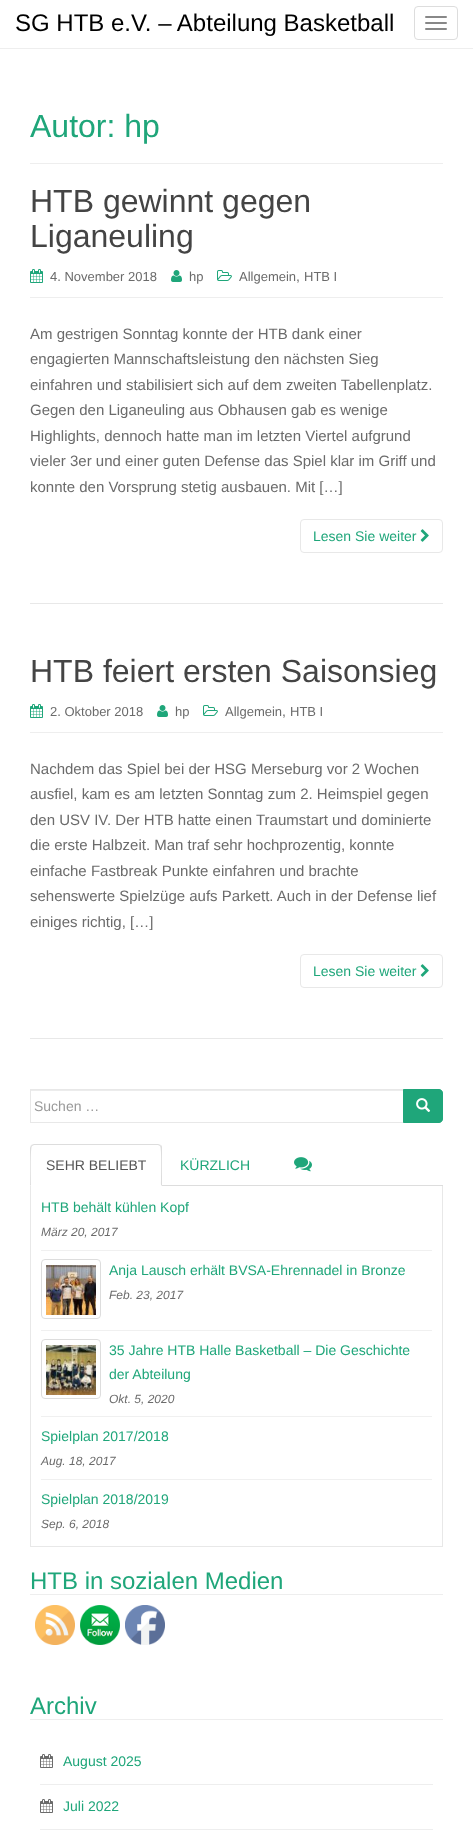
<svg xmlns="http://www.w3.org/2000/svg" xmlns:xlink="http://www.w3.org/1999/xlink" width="473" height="1843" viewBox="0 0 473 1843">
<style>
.cls-1{font:24px Liberation Sans;fill:#000000}
.cls-2{font:32px Liberation Sans;fill:#1fa67a}
.cls-3{font:32px Liberation Sans;fill:#444444}
.cls-4{font:13px Liberation Sans;fill:#6b6b6b}
.cls-5{font:14px Liberation Sans;fill:#6b6b6b}
.cls-6{font:15px Liberation Sans;fill:#6b6b6b}
.cls-7{font:14px Liberation Sans;fill:#1fa67a}
.cls-8{font:14px Liberation Sans;fill:#999999}
.cls-9{font:14px Liberation Sans;fill:#555555}
.cls-10{font:italic 12px Liberation Sans;fill:#6b6b6b}
.cls-11{font:24px Liberation Sans;fill:#1fa67a}
</style>
<rect width="100%" height="100%" fill="#ffffff"/>
<rect fill="#eeeeee" x="0" y="48" width="473" height="1"/>
<rect fill="none" stroke="#dddddd" x="414.5" y="6.5" width="43" height="33" rx="3.5"/>
<rect fill="#888888" x="425" y="16" width="22" height="2" rx="1"/>
<rect fill="#888888" x="425" y="22" width="22" height="2" rx="1"/>
<rect fill="#888888" x="425" y="28" width="22" height="2" rx="1"/>
<rect fill="#eeeeee" x="30" y="163" width="413" height="1"/>
<rect fill="#eeeeee" x="30" y="297" width="413" height="1"/>
<image xlink:href="image0.png" x="30" y="269" width="13" height="14"/>
<image xlink:href="image1.png" x="171" y="270" width="11" height="12"/>
<image xlink:href="image2.png" x="217" y="270" width="15" height="11"/>
<rect fill="none" stroke="#e8e8e8" x="300.5" y="519.5" width="142" height="33" rx="3.5"/>
<image xlink:href="image3.png" x="420" y="529" width="9" height="13"/>
<rect fill="#e8e8e8" x="30" y="603" width="413" height="1"/>
<rect fill="#eeeeee" x="30" y="732" width="413" height="1"/>
<image xlink:href="image0.png" x="30" y="704" width="13" height="14"/>
<image xlink:href="image1.png" x="157" y="705" width="11" height="12"/>
<image xlink:href="image2.png" x="203" y="705" width="15" height="11"/>
<rect fill="none" stroke="#e8e8e8" x="300.5" y="954.5" width="142" height="33" rx="3.5"/>
<image xlink:href="image3.png" x="420" y="964" width="9" height="13"/>
<rect fill="#e8e8e8" x="30" y="1038" width="413" height="1"/>
<rect fill="#ececec" x="31" y="1090" width="372" height="1"/>
<rect fill="none" stroke="#e8e8e8" x="30.5" y="1089.5" width="373" height="33"/>
<path fill="#1fa67a" stroke="#1fa67a" d="M403.5 1089.5H439C441 1089.5 442.5 1091 442.5 1093V1119C442.5 1121 441 1122.5 439 1122.5H403.5Z"/>
<image xlink:href="image4.png" x="416" y="1098" width="15" height="14"/>
<rect fill="#dddddd" x="162" y="1185" width="281" height="1"/>
<path fill="#dddddd" d="M34 1144L31 1145L32 1146L34 1145H158L160 1146L161 1145L158 1144Z"/>
<path fill="#dddddd" d="M162 1186V1148C162 1147 162 1146 161 1145L160 1146C162 1148 161 1180 161 1185Z"/>
<path fill="#dddddd" d="M30 1186L31 1185C31 1180 30 1148 32 1146L31 1145L30 1148Z"/>
<image xlink:href="image5.png" x="294" y="1157" width="18" height="15"/>
<rect fill="#e8e8e8" x="442" y="1186" width="1" height="361"/>
<rect fill="#e8e8e8" x="30" y="1546" width="413" height="1"/>
<rect fill="#e8e8e8" x="30" y="1186" width="1" height="361"/>
<rect fill="#f0f0f0" x="41" y="1250" width="391" height="1"/>
<rect fill="#f0f0f0" x="41" y="1330" width="391" height="1"/>
<rect fill="none" stroke="#dddddd" x="41.5" y="1259.5" width="59" height="59" rx="3.5"/>
<image xlink:href="image6.png" x="46" y="1265" width="50" height="50"/>
<rect fill="#f0f0f0" x="41" y="1416" width="391" height="1"/>
<rect fill="none" stroke="#dddddd" x="41.5" y="1339.5" width="59" height="59" rx="3.5"/>
<image xlink:href="image7.png" x="46" y="1345" width="50" height="50"/>
<rect fill="#f0f0f0" x="41" y="1479" width="391" height="1"/>
<rect fill="#eeeeee" x="30" y="1594" width="413" height="1"/>
<image xlink:href="image8.png" x="35" y="1605" width="40" height="40"/>
<image xlink:href="image9.png" x="80" y="1605" width="40" height="40"/>
<image xlink:href="image10.png" x="125" y="1605" width="40" height="40"/>
<rect fill="#eeeeee" x="30" y="1719" width="413" height="1"/>
<rect fill="#eeeeee" x="40" y="1784" width="393" height="1"/>
<image xlink:href="image11.png" x="40" y="1754" width="13" height="14"/>
<rect fill="#eeeeee" x="40" y="1829" width="393" height="1"/>
<image xlink:href="image11.png" x="40" y="1799" width="13" height="14"/>
<text class="cls-1" x="15" y="31">SG HTB e.V. – Abteilung Basketball</text>
<text class="cls-2" x="30" y="137">Autor: hp</text>
<text class="cls-3"><tspan x="30" y="212">HTB gewinnt gegen</tspan><tspan x="30" y="247">Liganeuling</tspan></text>
<text class="cls-4" x="50" y="281">4. November 2018</text>
<text class="cls-4" x="189" y="281">hp</text>
<text class="cls-4" x="239" y="281">Allgemein</text>
<text class="cls-5" x="296" y="281">,</text>
<text class="cls-4" x="304" y="281">HTB I</text>
<text class="cls-6"><tspan x="30" y="339">Am gestrigen Sonntag konnte der HTB dank einer</tspan><tspan x="30" y="364">engagierten Mannschaftsleistung den nächsten Sieg</tspan><tspan x="30" y="390">einfahren und stabilisiert sich auf dem zweiten Tabellenplatz.</tspan><tspan x="30" y="415">Gegen den Liganeuling aus Obhausen gab es wenige</tspan><tspan x="30" y="441">Highlights, dennoch hatte man im letzten Viertel aufgrund</tspan><tspan x="30" y="466">vieler 3er und einer guten Defense das Spiel klar im Griff und</tspan><tspan x="30" y="492">konnte den Vorsprung stetig ausbauen. Mit […]</tspan></text>
<text class="cls-7" x="313" y="541">Lesen Sie weiter</text>
<text class="cls-3" x="30" y="682">HTB feiert ersten Saisonsieg</text>
<text class="cls-4" x="50" y="716">2. Oktober 2018</text>
<text class="cls-4" x="175" y="716">hp</text>
<text class="cls-4" x="225" y="716">Allgemein</text>
<text class="cls-5" x="282" y="716">,</text>
<text class="cls-4" x="290" y="716">HTB I</text>
<text class="cls-6"><tspan x="30" y="774">Nachdem das Spiel bei der HSG Merseburg vor 2 Wochen</tspan><tspan x="30" y="799">ausfiel, kam es am letzten Sonntag zum 2. Heimspiel gegen</tspan><tspan x="30" y="825">den USV IV. Der HTB hatte einen Traumstart und dominierte</tspan><tspan x="30" y="850">die erste Halbzeit. Man traf sehr hochprozentig, konnte</tspan><tspan x="30" y="876">einfache Fastbreak Punkte einfahren und brachte</tspan><tspan x="30" y="901">sehenswerte Spielzüge aufs Parkett. Auch in der Defense lief</tspan><tspan x="30" y="927">einiges richtig, […]</tspan></text>
<text class="cls-7" x="313" y="976">Lesen Sie weiter</text>
<text class="cls-8" x="34" y="1111">Suchen …</text>
<text class="cls-9" x="46" y="1170">SEHR BELIEBT</text>
<text class="cls-7" x="180" y="1170">KÜRZLICH</text>
<text class="cls-7" x="41" y="1212">HTB behält kühlen Kopf</text>
<text class="cls-10" x="41" y="1236">März 20, 2017</text>
<text class="cls-7" x="109" y="1275">Anja Lausch erhält BVSA-Ehrennadel in Bronze</text>
<text class="cls-10" x="109" y="1299">Feb. 23, 2017</text>
<text class="cls-7"><tspan x="109" y="1355">35 Jahre HTB Halle Basketball – Die Geschichte</tspan><tspan x="109" y="1379">der Abteilung</tspan></text>
<text class="cls-10" x="109" y="1403">Okt. 5, 2020</text>
<text class="cls-7" x="41" y="1441">Spielplan 2017/2018</text>
<text class="cls-10" x="41" y="1465">Aug. 18, 2017</text>
<text class="cls-7" x="41" y="1504">Spielplan 2018/2019</text>
<text class="cls-10" x="41" y="1528">Sep. 6, 2018</text>
<text class="cls-11" x="30" y="1589">HTB in sozialen Medien</text>
<text class="cls-11" x="30" y="1714">Archiv</text>
<text class="cls-7" x="63" y="1766">August 2025</text>
<text class="cls-7" x="63" y="1811">Juli 2022</text>
</svg>
